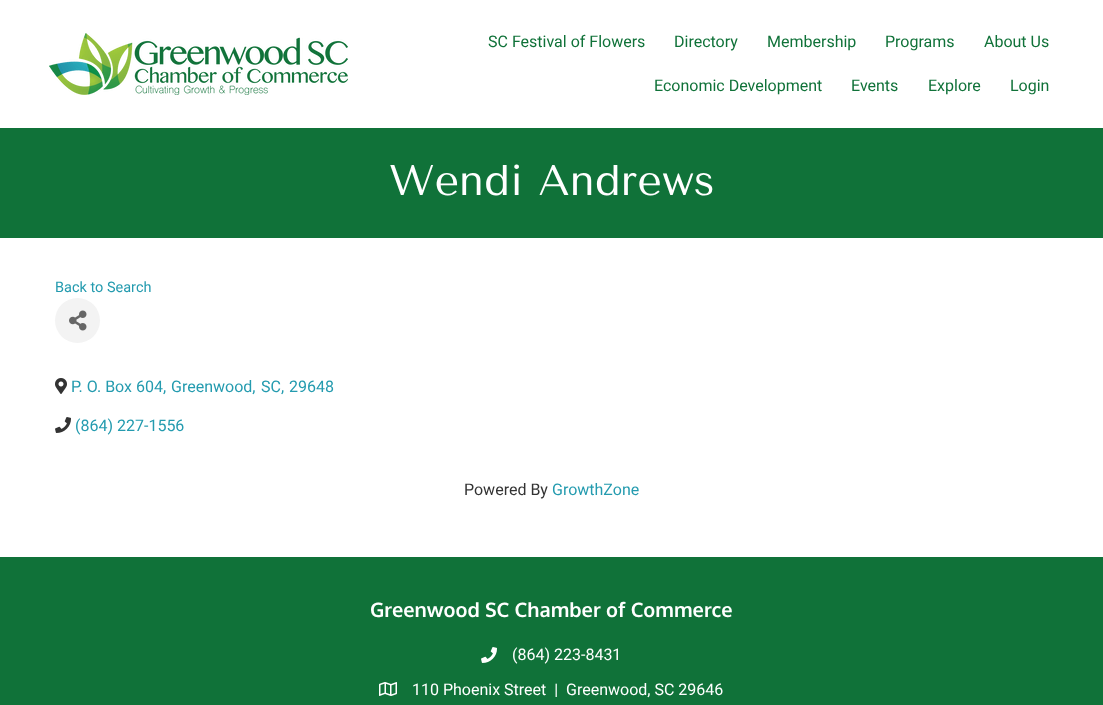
<svg xmlns="http://www.w3.org/2000/svg" xmlns:xlink="http://www.w3.org/1999/xlink" width="1103" height="705" viewBox="0 0 1103 705">
<style>
.cls-1{font:16px Roboto;fill:#107239}
.cls-2{font:43px Tenor Sans;fill:#ffffff}
.cls-3{font:14.5px Roboto;fill:#249baf}
.cls-4{font:16px Roboto;fill:#249baf}
.cls-5{font:16px Roboto;fill:#333333}
.cls-6{font:bold 20px Oxygen;fill:#ffffff}
.cls-7{font:16px Roboto;fill:#ffffff}
</style>
<rect width="100%" height="100%" fill="#ffffff"/>
<image xlink:href="image0.png" x="49" y="33" width="299" height="62"/>
<rect fill="#107239" x="0" y="128" width="1103" height="110"/>
<circle fill="#f3f3f3" cx="77.5" cy="320.5" r="22.5"/>
<image xlink:href="image1.png" x="69" y="310" width="18" height="21"/>
<image xlink:href="image2.png" x="55" y="378" width="12" height="16"/>
<image xlink:href="image3.png" x="55" y="417" width="16" height="16"/>
<rect fill="#107239" x="0" y="557" width="1103" height="148"/>
<image xlink:href="image4.png" x="481" y="647" width="16" height="16"/>
<image xlink:href="image5.png" x="379" y="682" width="18" height="14"/>
<text class="cls-1" x="488" y="47">SC Festival of Flowers</text>
<text class="cls-1" x="674" y="47">Directory</text>
<text class="cls-1" x="767" y="47">Membership</text>
<text class="cls-1" x="885" y="47">Programs</text>
<text class="cls-1" x="984" y="47">About Us</text>
<text class="cls-1" x="654" y="91">Economic Development</text>
<text class="cls-1" x="851" y="91">Events</text>
<text class="cls-1" x="928" y="91">Explore</text>
<text class="cls-1" x="1010" y="91">Login</text>
<text class="cls-2" x="389" y="195">Wendi Andrews</text>
<text class="cls-3" x="55" y="292">Back to Search</text>
<text class="cls-4" x="71" y="392">P. O. Box 604,</text>
<text class="cls-4" x="171" y="392">Greenwood,</text>
<text class="cls-4" x="261" y="392">SC,</text>
<text class="cls-4" x="289" y="392">29648</text>
<text class="cls-4" x="75" y="431">(864) 227-1556</text>
<text class="cls-5" x="464" y="495">Powered By</text>
<text class="cls-4" x="552" y="495">GrowthZone</text>
<text class="cls-6" x="370" y="617">Greenwood SC Chamber of Commerce</text>
<text class="cls-7" x="512" y="660">(864) 223-8431</text>
<text class="cls-7" xml:space="preserve" x="412" y="695">110 Phoenix Street  |  Greenwood, SC 29646</text>
</svg>
